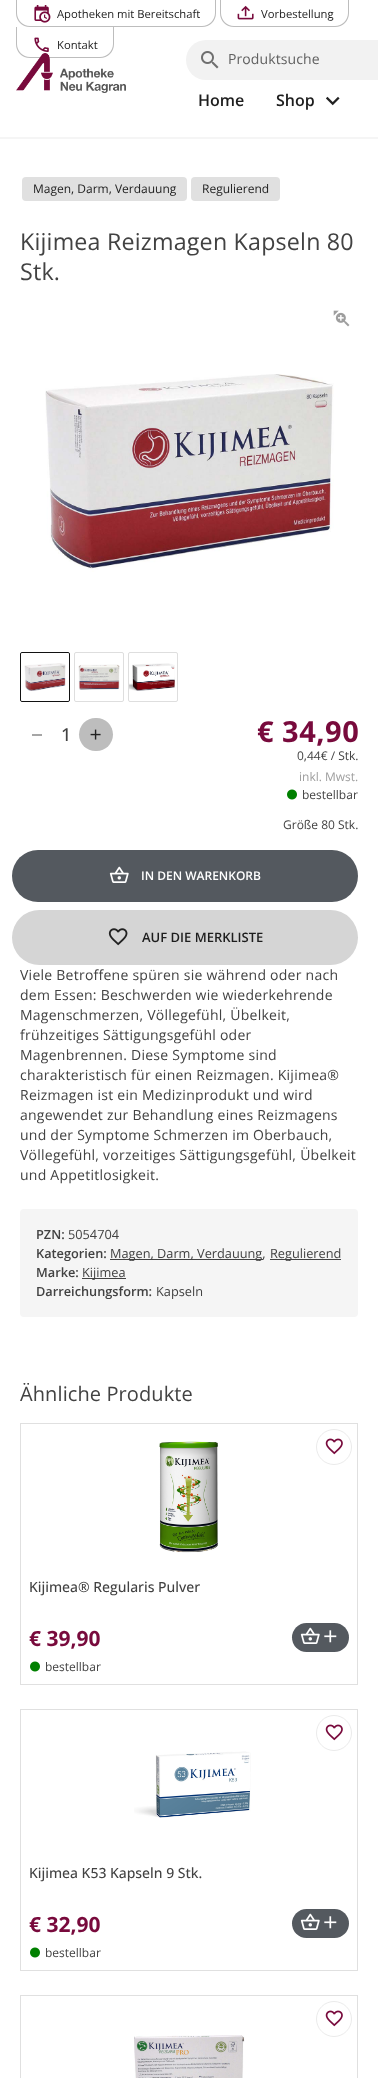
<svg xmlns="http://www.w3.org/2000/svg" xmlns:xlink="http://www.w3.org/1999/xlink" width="378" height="2078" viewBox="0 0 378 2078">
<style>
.cls-1{font:11.25px Open Sans;fill:#1d1d1d}
.cls-2{font:14px Open Sans;letter-spacing:0.1px;fill:#616161}
.cls-3{font:600 16px Open Sans;fill:#1d1d1d}
.cls-4{font:12px Open Sans;fill:#1d1d1d}
.cls-5{font:23.25px Open Sans;letter-spacing:0.2px;fill:#424242}
.cls-6{font:500 18px Open Sans;fill:#424242}
.cls-7{font:bold 29px Open Sans;letter-spacing:0.5px;fill:#780a3c}
.cls-8{font:12px Open Sans;fill:#424242}
.cls-9{font:12px Open Sans;fill:#9e9e9e}
.cls-10{font:600 12px Open Sans;fill:#ffffff}
.cls-11{font:600 13px Open Sans;fill:#1d1d1d}
.cls-12{font:14px Open Sans;letter-spacing:0.25px;fill:#424242}
.cls-13{font:600 12.75px Open Sans;fill:#424242}
.cls-14{font:12.75px Open Sans;fill:#424242}
.cls-15{font:20px Open Sans;letter-spacing:0.1px;fill:#424242}
.cls-16{font:500 14px Open Sans;fill:#424242}
.cls-17{font:bold 21px Open Sans;fill:#780a3c}
</style>
<rect width="100%" height="100%" fill="#ffffff"/>
<rect fill="#f5f5f5" x="0" y="137" width="378" height="2"/>
<path fill="#bdbdbd" fill-rule="evenodd" d="M16-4H216V13C216 21 210 27 202 27H30C22 27 16 21 16 13ZM17-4H215V13C215 20 209 26 202 26H30C23 26 17 20 17 13Z"/>
<image xlink:href="image0.png" x="34" y="5" width="17" height="18"/>
<path fill="#bdbdbd" fill-rule="evenodd" d="M220-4H349V13C349 21 343 27 335 27H234C226 27 220 21 220 13ZM221-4H348V13C348 20 342 26 335 26H234C227 26 221 20 221 13Z"/>
<image xlink:href="image1.png" x="237" y="5" width="17" height="15"/>
<path fill="#bdbdbd" fill-rule="evenodd" d="M16 27H114V44C114 52 108 58 100 58H30C22 58 16 52 16 44ZM17 27H113V44C113 51 107 57 100 57H30C23 57 17 51 17 44Z"/>
<image xlink:href="image2.png" x="34" y="37" width="15" height="15"/>
<image xlink:href="image3.png" x="16" y="53" width="110" height="40"/>
<rect fill="#f2f2f2" x="186" y="40" width="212" height="40" rx="20"/>
<image xlink:href="image4.png" x="201" y="51" width="18" height="18"/>
<image xlink:href="image5.png" x="326" y="96" width="14" height="10"/>
<rect fill="#e0e0e0" x="22" y="177" width="165" height="24" rx="4"/>
<rect fill="#e0e0e0" x="191" y="177" width="89" height="24" rx="4"/>
<image xlink:href="image6.png" x="333" y="310" width="17" height="17"/>
<image xlink:href="image7.png" x="45" y="374" width="289" height="198"/>
<rect fill="none" stroke="#121212" x="20.5" y="652.5" width="49" height="49" rx="1.5"/>
<image xlink:href="image8.png" x="21" y="653" width="48" height="48"/>
<rect fill="none" stroke="#dedede" x="74.5" y="652.5" width="49" height="49" rx="1.5"/>
<image xlink:href="image9.png" x="78" y="664" width="42" height="26"/>
<rect fill="none" stroke="#dedede" x="128.5" y="652.5" width="49" height="49" rx="1.5"/>
<image xlink:href="image10.png" x="129" y="663" width="46" height="28"/>
<rect fill="#a6a6a6" x="32" y="734" width="10" height="2"/>
<rect fill="#bdbdbd" x="79" y="718" width="34" height="33" rx="16.5"/>
<image xlink:href="image11.png" x="90" y="729" width="11" height="11"/>
<image xlink:href="image12.png" x="287" y="789" width="10" height="11"/>
<rect fill="#54595f" x="12" y="850" width="346" height="52" rx="26"/>
<image xlink:href="image13.png" x="109" y="866" width="20" height="17"/>
<rect fill="#d5d5d5" x="12" y="910" width="346" height="55" rx="27.5"/>
<image xlink:href="image14.png" x="108" y="928" width="20" height="18"/>
<rect fill="#f5f5f5" x="20" y="1209" width="338" height="108" rx="4"/>
<rect fill="#424242" x="110" y="1259" width="153" height="1"/>
<rect fill="#424242" x="270" y="1259" width="71" height="1"/>
<rect fill="#424242" x="82" y="1278" width="44" height="1"/>
<rect fill="none" stroke="#e0e0e0" x="20.5" y="1423.5" width="337" height="261"/>
<image xlink:href="image15.png" x="159" y="1441" width="59" height="112"/>
<circle fill="none" stroke="#ebebeb" cx="334" cy="1447" r="17.5"/>
<image xlink:href="image16.png" x="325" y="1438" width="18" height="17"/>
<rect fill="#54595f" x="292" y="1623" width="57" height="29" rx="14.5"/>
<image xlink:href="image13.png" x="300" y="1627" width="20" height="17"/>
<image xlink:href="image17.png" x="324" y="1630" width="13" height="13"/>
<image xlink:href="image12.png" x="30" y="1661" width="10" height="11"/>
<rect fill="none" stroke="#e0e0e0" x="20.5" y="1709.5" width="337" height="261"/>
<circle fill="none" stroke="#ebebeb" cx="334" cy="1733" r="17.5"/>
<image xlink:href="image16.png" x="325" y="1724" width="18" height="17"/>
<image xlink:href="image18.png" x="134" y="1751" width="117" height="67"/>
<rect fill="#54595f" x="292" y="1909" width="57" height="29" rx="14.5"/>
<image xlink:href="image13.png" x="300" y="1913" width="20" height="17"/>
<image xlink:href="image17.png" x="324" y="1916" width="13" height="13"/>
<image xlink:href="image12.png" x="30" y="1947" width="10" height="11"/>
<rect fill="none" stroke="#e0e0e0" x="20.5" y="1995.5" width="337" height="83"/>
<circle fill="none" stroke="#ebebeb" cx="334" cy="2019" r="17.5"/>
<image xlink:href="image16.png" x="325" y="2010" width="18" height="17"/>
<image xlink:href="image19.png" x="134" y="2035" width="111" height="43"/>
<text class="cls-1" x="57" y="18">Apotheken mit Bereitschaft</text>
<text class="cls-1" x="261" y="18">Vorbestellung</text>
<text class="cls-1" x="57" y="49">Kontakt</text>
<text class="cls-2" x="228" y="64">Produktsuche</text>
<text class="cls-3" x="198" y="106">Home</text>
<text class="cls-3" x="276" y="106">Shop</text>
<text class="cls-4" x="33" y="193">Magen, Darm, Verdauung</text>
<text class="cls-4" x="202" y="193">Regulierend</text>
<text class="cls-5"><tspan x="20" y="250">Kijimea Reizmagen Kapseln 80</tspan><tspan x="20" y="280">Stk.</tspan></text>
<text class="cls-6" x="61" y="741">1</text>
<text class="cls-7" x="257" y="742">€ 34,90</text>
<text class="cls-8" x="297" y="760">0,44€ / Stk.</text>
<text class="cls-9" x="299" y="781">inkl. Mwst.</text>
<text class="cls-8" x="302" y="799">bestellbar</text>
<text class="cls-8" x="283" y="829">Größe 80 Stk.</text>
<text class="cls-10" x="141" y="880">IN DEN WARENKORB</text>
<text class="cls-11" x="142" y="942">AUF DIE MERKLISTE</text>
<text class="cls-12"><tspan x="20" y="980">Viele Betroffene spüren sie während oder nach</tspan><tspan x="20" y="1000">dem Essen: Beschwerden wie wiederkehrende</tspan><tspan x="20" y="1020">Magenschmerzen, Völlegefühl, Übelkeit,</tspan><tspan x="20" y="1040">frühzeitiges Sättigungsgefühl oder</tspan><tspan x="20" y="1060">Magenbrennen. Diese Symptome sind</tspan><tspan x="20" y="1080">charakteristisch für einen Reizmagen. Kijimea®</tspan><tspan x="20" y="1100">Reizmagen ist ein Medizinprodukt und wird</tspan><tspan x="20" y="1120">angewendet zur Behandlung eines Reizmagens</tspan><tspan x="20" y="1140">und der Symptome Schmerzen im Oberbauch,</tspan><tspan x="20" y="1160">Völlegefühl, vorzeitiges Sättigungsgefühl, Übelkeit</tspan><tspan x="20" y="1180">und Appetitlosigkeit.</tspan></text>
<text class="cls-13" x="36" y="1239">PZN:</text>
<text class="cls-14" x="68" y="1239">5054704</text>
<text class="cls-13" x="36" y="1258">Kategorien:</text>
<text class="cls-14" x="110" y="1258">Magen, Darm, Verdauung,</text>
<text class="cls-14" x="270" y="1258">Regulierend</text>
<text class="cls-13" x="36" y="1277">Marke:</text>
<text class="cls-14" x="82" y="1277">Kijimea</text>
<text class="cls-13" x="36" y="1296">Darreichungsform:</text>
<text class="cls-14" x="156" y="1296">Kapseln</text>
<text class="cls-15" x="20" y="1401">Ähnliche Produkte</text>
<text class="cls-16" x="29" y="1592">Kijimea® Regularis Pulver</text>
<text class="cls-17" x="29" y="1646">€ 39,90</text>
<text class="cls-8" x="45" y="1671">bestellbar</text>
<text class="cls-16" x="29" y="1878">Kijimea K53 Kapseln 9 Stk.</text>
<text class="cls-17" x="29" y="1932">€ 32,90</text>
<text class="cls-8" x="45" y="1957">bestellbar</text>
</svg>
